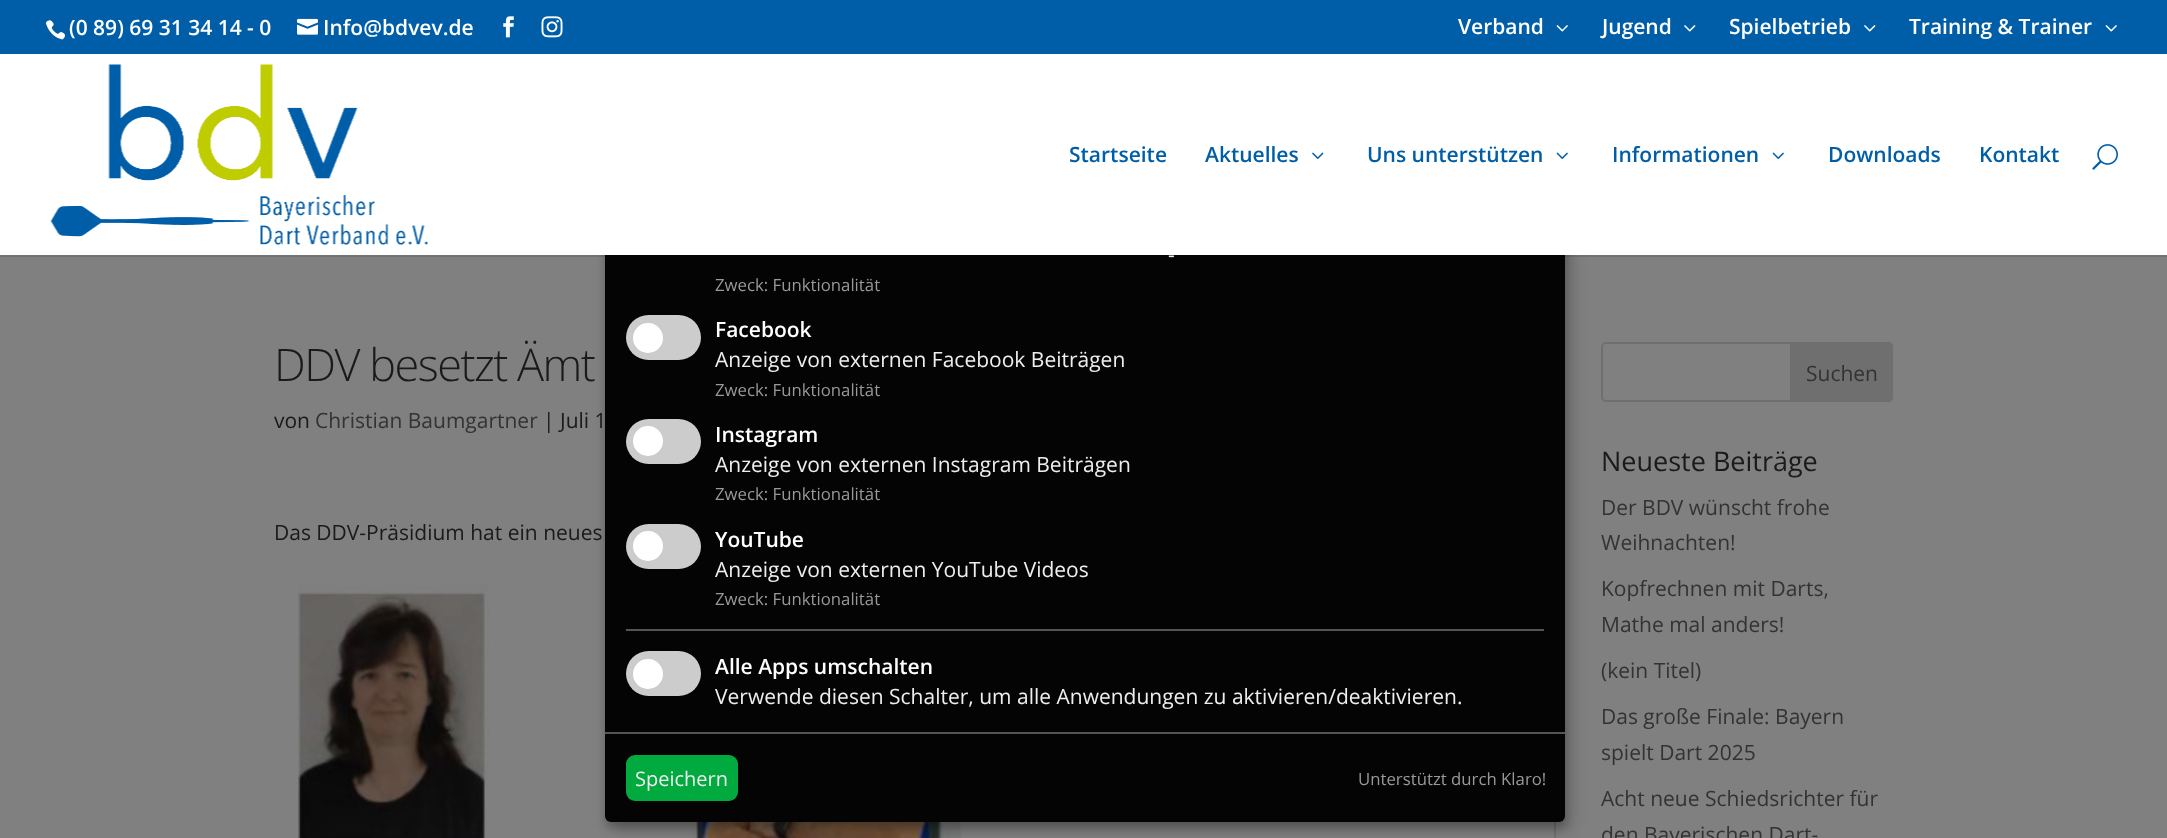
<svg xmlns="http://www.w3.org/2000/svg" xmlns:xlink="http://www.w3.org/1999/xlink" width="2167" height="838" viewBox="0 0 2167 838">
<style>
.cls-1{font:600 21px Open Sans;fill:#ffffff}
.cls-2{font:600 21px Open Sans;fill:#005ea8}
.cls-3{font:300 45px Open Sans;letter-spacing:-1.5px;fill:#1a1a1a}
.cls-4{font:21px Open Sans;fill:#1a1a1a}
.cls-5{font:21px Open Sans;fill:#333333}
.cls-6{font:27px Open Sans;fill:#1a1a1a}
.cls-7{font:21px Open Sans;fill:#eeeeee}
.cls-8{font:16.75px Open Sans;fill:#999999}
.cls-9{font:20px Open Sans;fill:#eeeeee}
</style>
<rect width="100%" height="100%" fill="#808080"/>
<image xlink:href="image11.png" x="691" y="822" width="272" height="16"/>
<rect fill="#717171" x="1554" y="822" width="2" height="16"/>
<rect fill="#000000" fill-opacity="0.19" filter="blur(7.5px)" x="612" y="24" width="960" height="806" rx="6"/>
<rect fill="#000000" fill-opacity="0.2" filter="blur(4.5px)" x="605" y="23" width="960" height="805" rx="6"/>
<rect fill="#050404" x="605" y="17" width="960" height="805" rx="6"/>
<rect fill="#005ea8" x="0" y="0" width="2167" height="54"/>
<image xlink:href="image0.png" x="45" y="20" width="21" height="20"/>
<image xlink:href="image1.png" x="297" y="18" width="21" height="17"/>
<image xlink:href="image2.png" x="503" y="16" width="11" height="22"/>
<image xlink:href="image3.png" x="541" y="16" width="22" height="22"/>
<image xlink:href="image4.png" x="1556" y="25" width="12" height="7"/>
<image xlink:href="image5.png" x="1684" y="25" width="12" height="7"/>
<image xlink:href="image5.png" x="1864" y="25" width="12" height="7"/>
<image xlink:href="image4.png" x="2105" y="25" width="12" height="7"/>
<path fill="#000000" fill-opacity="0.1" d="M0 255V257H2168V56V255Z"/>
<rect fill="#ffffff" x="0" y="54" width="2167" height="201"/>
<image xlink:href="image6.png" x="50" y="64" width="378" height="181"/>
<image xlink:href="image7.png" x="1312" y="152" width="12" height="7"/>
<image xlink:href="image8.png" x="1556" y="152" width="12" height="7"/>
<image xlink:href="image8.png" x="1772" y="152" width="12" height="7"/>
<image xlink:href="image9.png" x="2092" y="144" width="26" height="26"/>
<image xlink:href="image10.png" x="298" y="584" width="191" height="254"/>
<rect fill="none" stroke="#6f6f6f" stroke-width="2" x="1602" y="343" width="290" height="58" rx="4"/>
<path fill="#6f6f6f" d="M1790 342H1888C1891 342 1893 344 1893 347V397C1893 400 1891 402 1888 402H1790Z"/>
<rect fill="#cccccc" x="626" y="315" width="75" height="45" rx="22.5"/>
<circle fill="#ffffff" cx="648" cy="338" r="15"/>
<rect fill="#cccccc" x="626" y="419" width="75" height="45" rx="22.5"/>
<circle fill="#ffffff" cx="648" cy="441" r="15"/>
<rect fill="#cccccc" x="626" y="524" width="75" height="45" rx="22.5"/>
<circle fill="#ffffff" cx="648" cy="546" r="15"/>
<rect fill="#555555" x="626" y="629" width="918" height="2"/>
<rect fill="#cccccc" x="626" y="651" width="75" height="45" rx="22.5"/>
<circle fill="#ffffff" cx="648" cy="674" r="15"/>
<rect fill="#555555" x="605" y="732" width="960" height="2"/>
<rect fill="#00aa3e" x="626" y="755" width="112" height="46" rx="9"/>
<text class="cls-1" x="69" y="35">(0 89) 69 31 34 14 - 0</text>
<text class="cls-1" x="323" y="35">Info@bdvev.de</text>
<text class="cls-1" x="1458" y="34">Verband</text>
<text class="cls-1" x="1602" y="34">Jugend</text>
<text class="cls-1" x="1729" y="34">Spielbetrieb</text>
<text class="cls-1" x="1909" y="34">Training &amp; Trainer</text>
<text class="cls-2" x="1069" y="162">Startseite</text>
<text class="cls-2" x="1205" y="162">Aktuelles</text>
<text class="cls-2" x="1367" y="162">Uns unterstützen</text>
<text class="cls-2" x="1612" y="162">Informationen</text>
<text class="cls-2" x="1828" y="162">Downloads</text>
<text class="cls-2" x="1979" y="162">Kontakt</text>
<text class="cls-3" x="274" y="381">DDV besetzt Ämt</text>
<text class="cls-4" x="274" y="428">von</text>
<text class="cls-5" x="315" y="428">Christian Baumgartner</text>
<text class="cls-4" x="543" y="428">| Juli 1</text>
<text class="cls-4" x="274" y="540">Das DDV-Präsidium hat ein neues</text>
<text class="cls-5" x="1806" y="381">Suchen</text>
<text class="cls-6" x="1601" y="471">Neueste Beiträge</text>
<text class="cls-5"><tspan x="1601" y="515">Der BDV wünscht frohe</tspan><tspan x="1601" y="550">Weihnachten!</tspan></text>
<text class="cls-5"><tspan x="1601" y="596">Kopfrechnen mit Darts,</tspan><tspan x="1601" y="632">Mathe mal anders!</tspan></text>
<text class="cls-5" x="1601" y="678">(kein Titel)</text>
<text class="cls-5"><tspan x="1601" y="724">Das große Finale: Bayern</tspan><tspan x="1601" y="760">spielt Dart 2025</tspan></text>
<text class="cls-5"><tspan x="1601" y="806">Acht neue Schiedsrichter für</tspan><tspan x="1601" y="842">den Bayerischen Dart-</tspan></text>
<text class="cls-7" x="1168" y="262">-</text>
<text class="cls-8" x="715" y="291">Zweck: Funktionalität</text>
<text class="cls-1" x="715" y="337">Facebook</text>
<text class="cls-7" x="715" y="367">Anzeige von externen Facebook Beiträgen</text>
<text class="cls-8" x="715" y="396">Zweck: Funktionalität</text>
<text class="cls-1" x="715" y="442">Instagram</text>
<text class="cls-7" x="715" y="472">Anzeige von externen Instagram Beiträgen</text>
<text class="cls-8" x="715" y="500">Zweck: Funktionalität</text>
<text class="cls-1" x="715" y="547">YouTube</text>
<text class="cls-7" x="715" y="577">Anzeige von externen YouTube Videos</text>
<text class="cls-8" x="715" y="605">Zweck: Funktionalität</text>
<text class="cls-1" x="715" y="674">Alle Apps umschalten</text>
<text class="cls-7" x="715" y="704">Verwende diesen Schalter, um alle Anwendungen zu aktivieren/deaktivieren.</text>
<text class="cls-9" x="635" y="786">Speichern</text>
<text class="cls-8" x="1358" y="785">Unterstützt durch Klaro!</text>
</svg>
